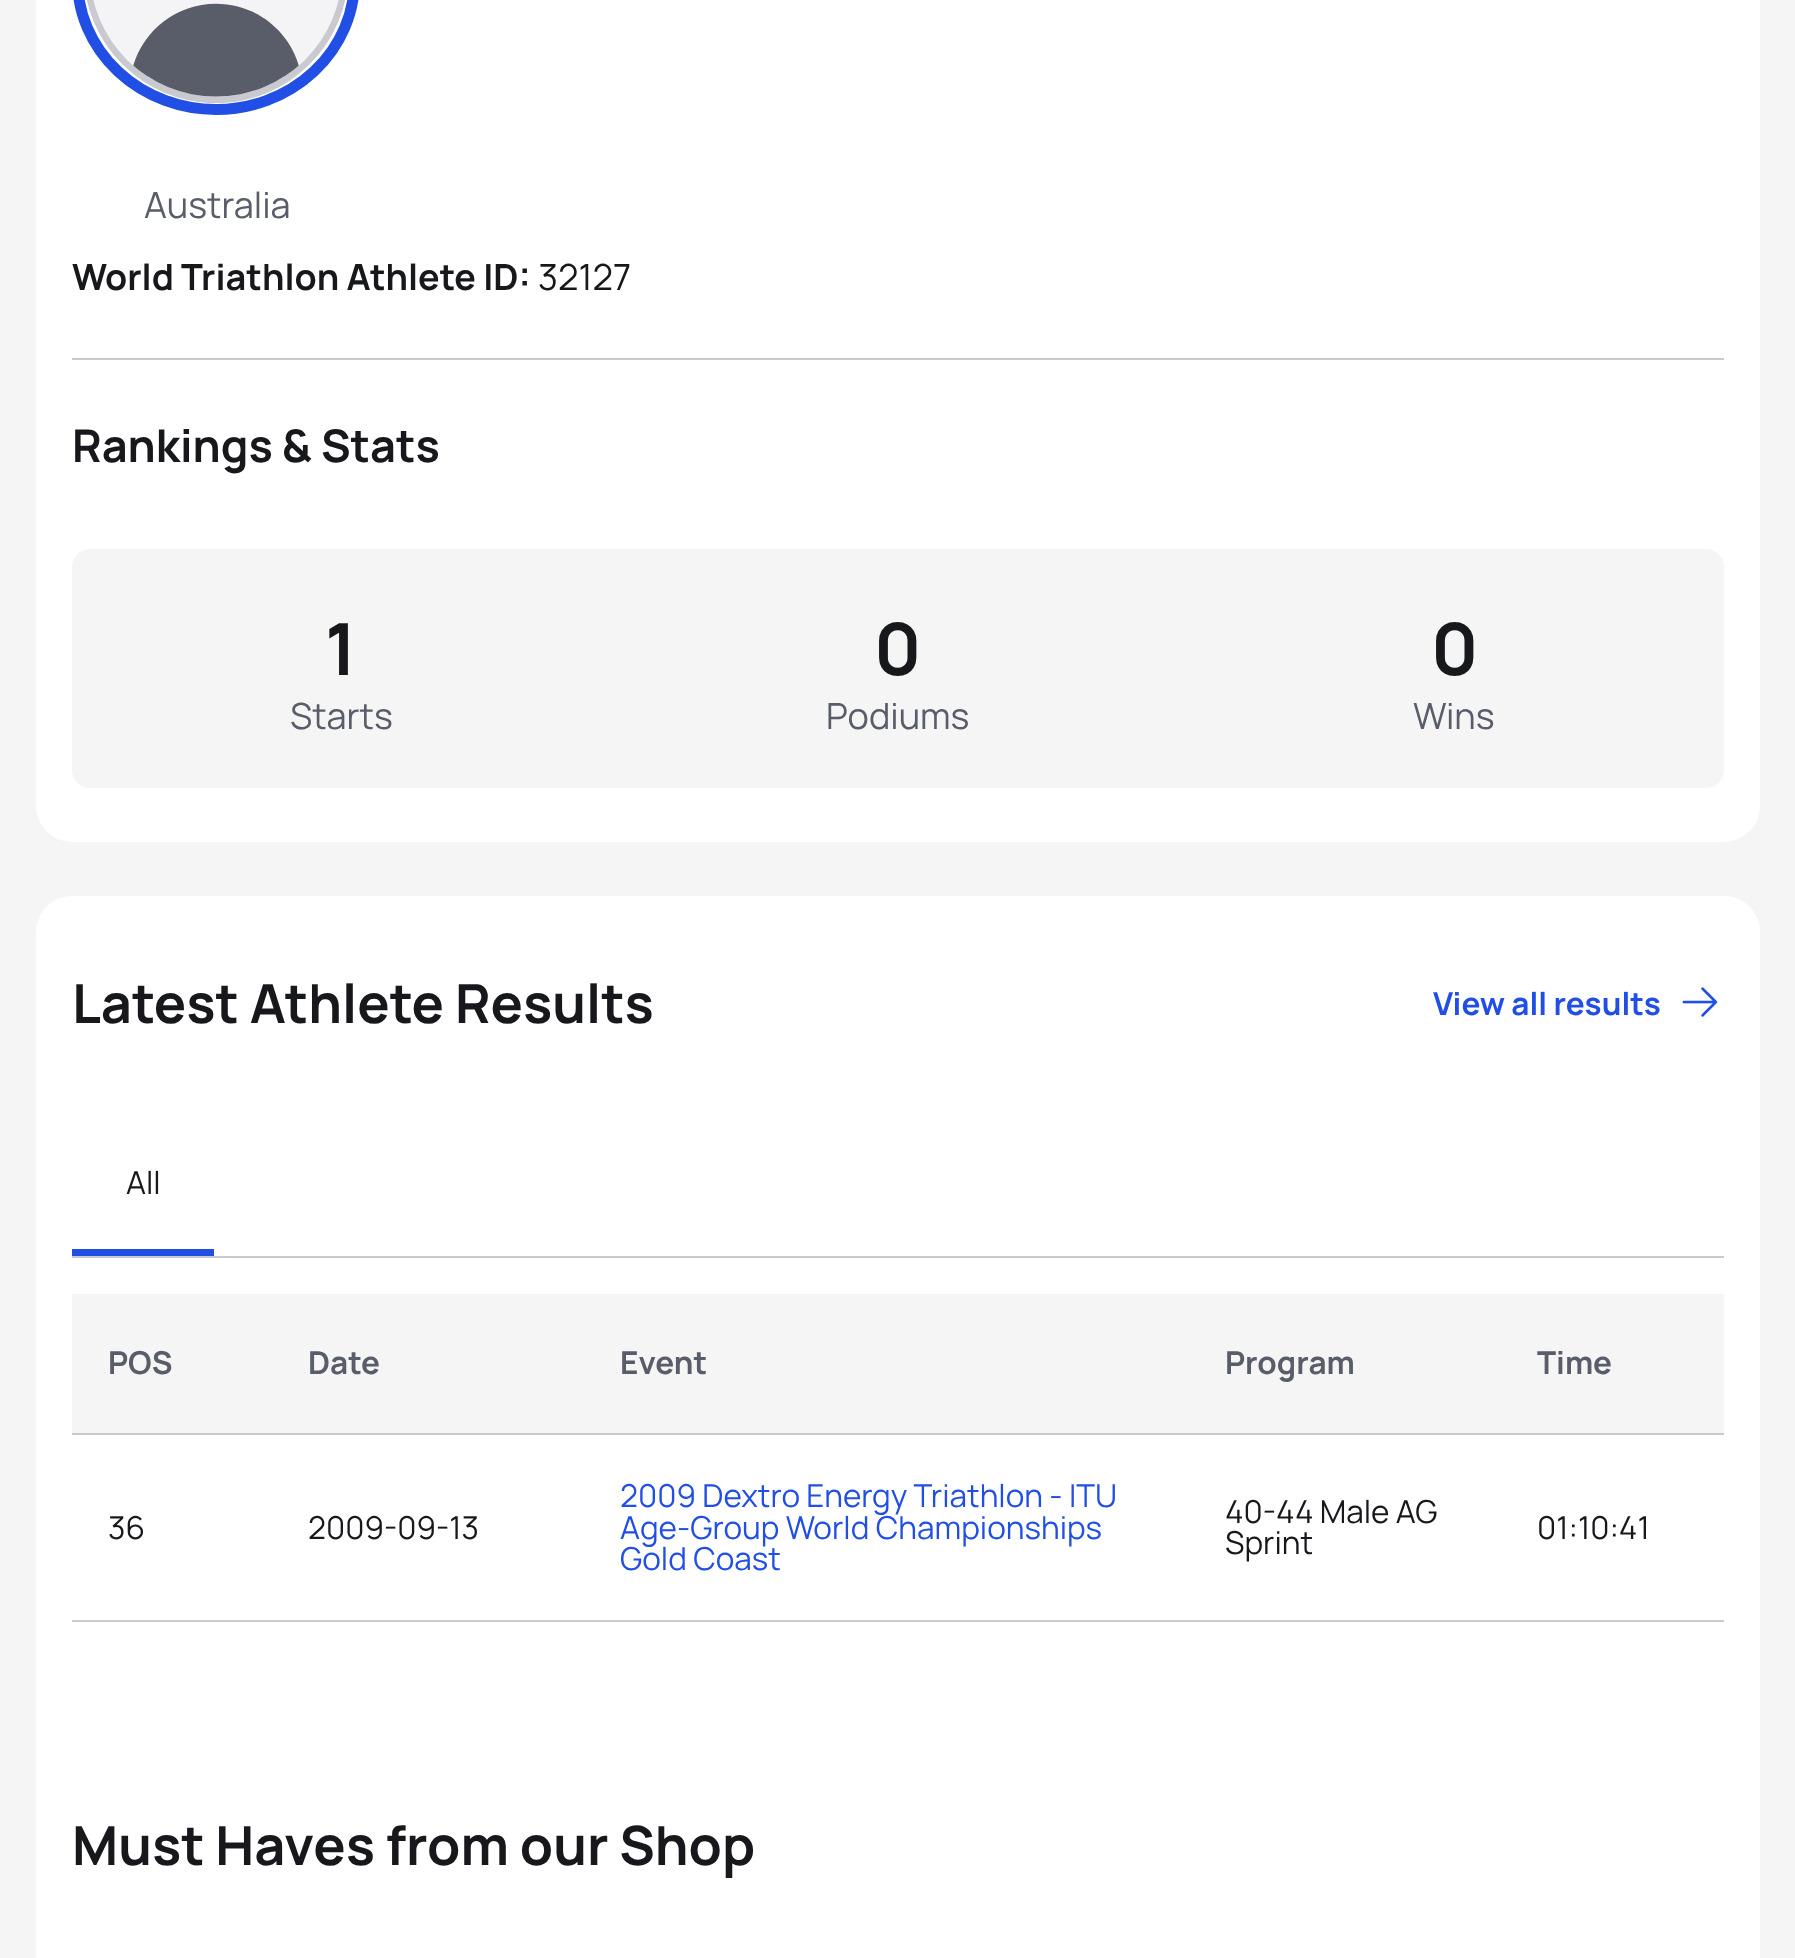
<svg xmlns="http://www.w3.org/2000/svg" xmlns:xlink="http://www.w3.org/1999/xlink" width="1795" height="1958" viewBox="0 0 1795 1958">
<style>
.cls-1{font:36px Manrope;fill:#595d69}
.cls-2{font:bold 36px Manrope;fill:#17181c}
.cls-3{font:36px Manrope;fill:#17181c}
.cls-4{font:bold 45px Manrope;fill:#17181c}
.cls-5{font:bold 72px Manrope;fill:#17181c}
.cls-6{font:bold 54px Manrope;fill:#17181c}
.cls-7{font:bold 31.5px Manrope;fill:#214ee4}
.cls-8{font:31.5px Manrope;fill:#17181c}
.cls-9{font:bold 31.5px Manrope;fill:#595d69}
.cls-10{font:31.5px Manrope;fill:#214ee4}
</style>
<rect width="100%" height="100%" fill="#f5f5f5"/>
<rect fill="#ffffff" x="36" y="-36" width="1724" height="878" rx="36"/>
<rect fill="none" stroke="#214ee4" stroke-width="11" x="77.5" y="-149.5" width="277" height="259" rx="138.5"/>
<image xlink:href="image0.png" x="87" y="0" width="258" height="103"/>
<rect fill="#c8cad0" x="72" y="358" width="1652" height="2"/>
<rect fill="#f5f5f5" x="72" y="549" width="1652" height="239" rx="18"/>
<rect fill="#ffffff" x="36" y="896" width="1724" height="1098" rx="36"/>
<image xlink:href="image1.png" x="1682" y="987" width="36" height="30"/>
<rect fill="#214ee4" x="72" y="1249" width="142" height="7"/>
<rect fill="#c8cad0" x="72" y="1256" width="1652" height="2"/>
<rect fill="#c8cad0" x="72" y="1433" width="1652" height="2"/>
<rect fill="#f5f5f5" x="72" y="1294" width="1652" height="139"/>
<rect fill="#c8cad0" x="72" y="1620" width="1652" height="2"/>
<text class="cls-1" x="144" y="218">Australia</text>
<text class="cls-2" x="72" y="290">World Triathlon Athlete ID:</text>
<text class="cls-3" x="538" y="290">32127</text>
<text class="cls-4" x="72" y="462">Rankings &amp; Stats</text>
<text class="cls-5" x="325" y="675">1</text>
<text class="cls-1" x="290" y="729">Starts</text>
<text class="cls-5" x="874" y="675">0</text>
<text class="cls-1" x="826" y="729">Podiums</text>
<text class="cls-5" x="1431" y="675">0</text>
<text class="cls-1" x="1413" y="729">Wins</text>
<text class="cls-6" x="72" y="1023">Latest Athlete Results</text>
<text class="cls-7" x="1433" y="1015">View all results</text>
<text class="cls-8" x="126" y="1194">All</text>
<text class="cls-9" x="108" y="1374">POS</text>
<text class="cls-9" x="308" y="1374">Date</text>
<text class="cls-9" x="620" y="1374">Event</text>
<text class="cls-9" x="1225" y="1374">Program</text>
<text class="cls-9" x="1537" y="1374">Time</text>
<text class="cls-8" x="108" y="1539">36</text>
<text class="cls-8" x="308" y="1539">2009-09-13</text>
<text class="cls-10"><tspan x="620" y="1507">2009 Dextro Energy Triathlon - ITU</tspan><tspan x="620" y="1539">Age-Group World Championships</tspan><tspan x="620" y="1570">Gold Coast</tspan></text>
<text class="cls-8"><tspan x="1225" y="1523">40-44 Male AG</tspan><tspan x="1225" y="1554">Sprint</tspan></text>
<text class="cls-8" x="1537" y="1539">01:10:41</text>
<text class="cls-6" x="72" y="1865">Must Haves from our Shop</text>
</svg>
